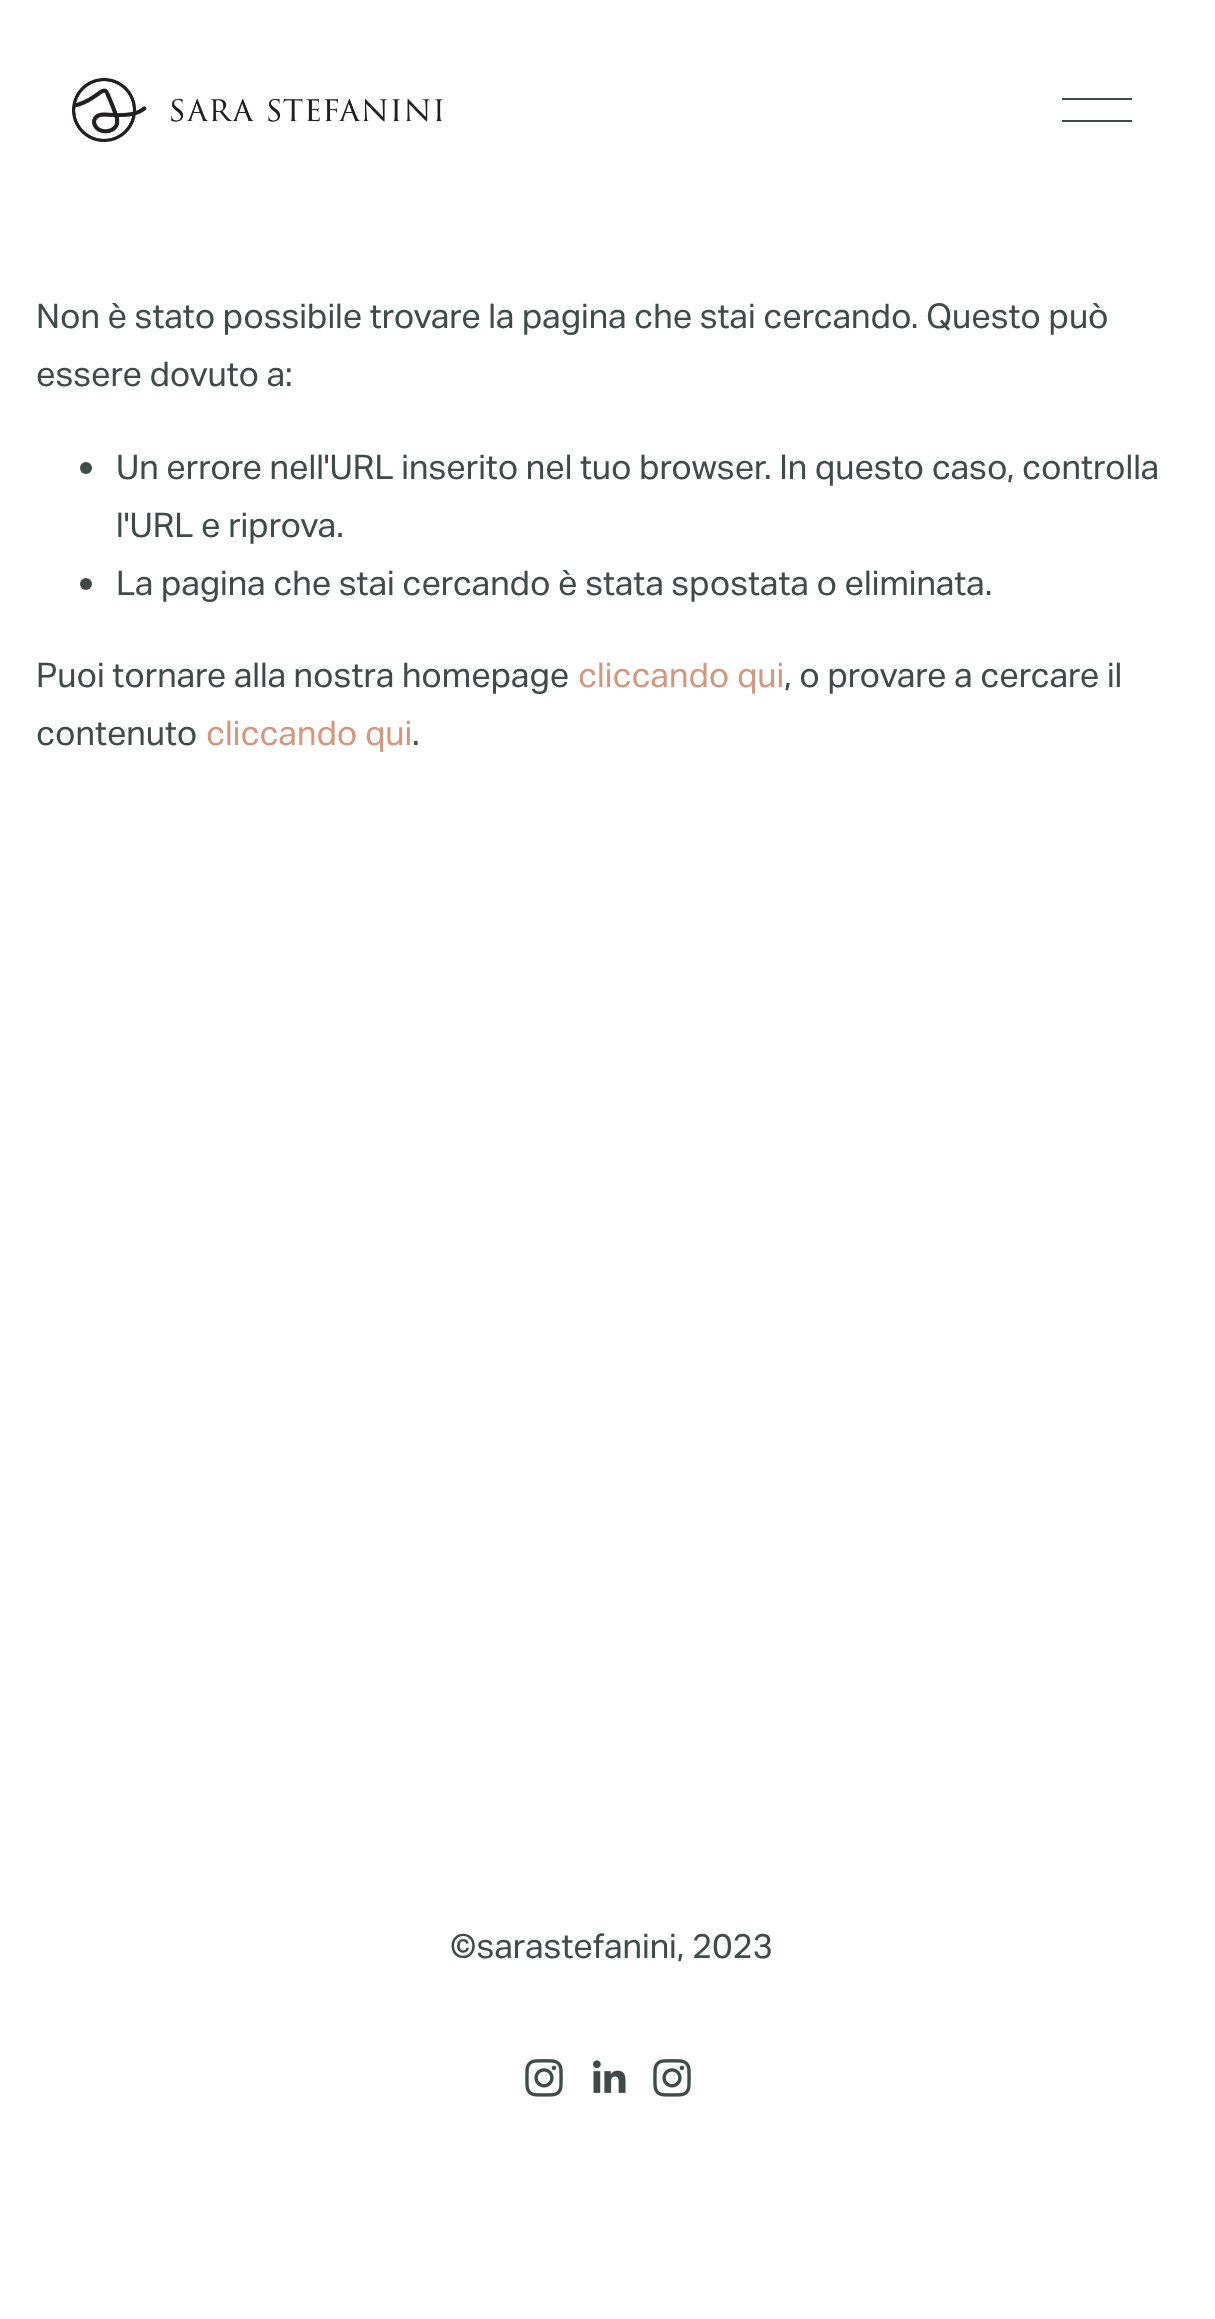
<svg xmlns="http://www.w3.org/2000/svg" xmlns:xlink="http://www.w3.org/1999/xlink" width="1215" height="2319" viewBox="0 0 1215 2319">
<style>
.cls-1{font:34.15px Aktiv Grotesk;fill:#3f4a49}
.cls-2{font:34.15px Aktiv Grotesk;fill:#d4967d}
</style>
<rect width="100%" height="100%" fill="#ffffff"/>
<image xlink:href="image0.png" x="72" y="77" width="371" height="65"/>
<rect fill="#3f4a49" x="1062" y="98" width="70" height="2"/>
<rect fill="#3f4a49" x="1062" y="120" width="70" height="2"/>
<circle fill="#3f4a49" cx="86" cy="468" r="6"/>
<circle fill="#3f4a49" cx="86" cy="584" r="6"/>
<image xlink:href="image1.png" x="525" y="2059" width="38" height="38"/>
<image xlink:href="image2.png" x="593" y="2060" width="33" height="33"/>
<image xlink:href="image1.png" x="653" y="2059" width="38" height="38"/>
<text class="cls-1"><tspan x="36" y="328">Non è stato possibile trovare la pagina che stai cercando. Questo può</tspan><tspan x="36" y="386">essere dovuto a:</tspan></text>
<text class="cls-1"><tspan x="116" y="479">Un errore nell'URL inserito nel tuo browser. In questo caso, controlla</tspan><tspan x="116" y="537">l'URL e riprova.</tspan><tspan x="116" y="595">La pagina che stai cercando è stata spostata o eliminata.</tspan></text>
<text class="cls-1" x="36" y="687">Puoi tornare alla nostra homepage</text>
<text class="cls-2" x="578" y="687">cliccando qui</text>
<text class="cls-1" x="784" y="687">, o provare a cercare il</text>
<text class="cls-1" x="36" y="745">contenuto</text>
<text class="cls-2" x="206" y="745">cliccando qui</text>
<text class="cls-1" x="412" y="745">.</text>
<text class="cls-1" x="450" y="1958">©sarastefanini, 2023</text>
</svg>
